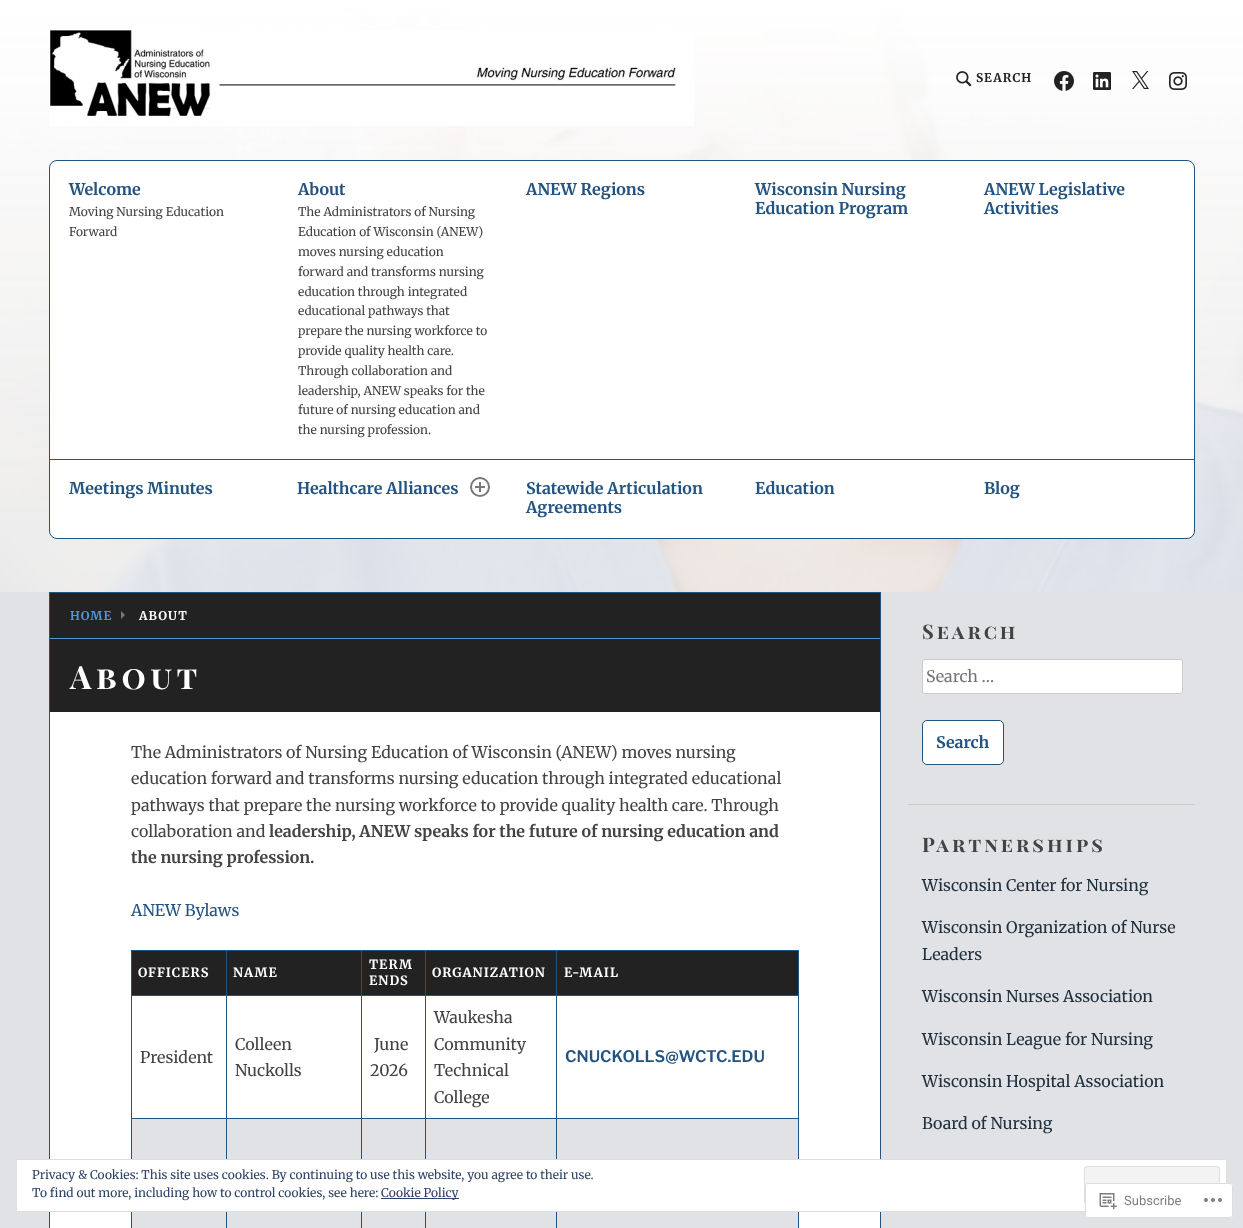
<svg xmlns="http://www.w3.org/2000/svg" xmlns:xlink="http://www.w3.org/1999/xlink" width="1243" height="1228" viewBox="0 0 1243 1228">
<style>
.cls-1{font:bold 12px Merriweather;letter-spacing:1px;fill:#222222}
.cls-2{font:bold 16px Merriweather;fill:#235380}
.cls-3{font:12px Merriweather;fill:#434343}
.cls-4{font:bold 12px Merriweather;letter-spacing:1px;fill:#5196d6}
.cls-5{font:bold 12px Merriweather;letter-spacing:1px;fill:#ffffff}
.cls-6{font:bold 32px Playfair Display SC;letter-spacing:4.75px;fill:#ffffff}
.cls-7{font:16px Merriweather;fill:#434343}
.cls-8{font:bold 16px Merriweather;fill:#434343}
.cls-9{font:16px Merriweather;fill:#235380}
.cls-10{font:bold 12.75px Merriweather;letter-spacing:1px;fill:#ffffff}
.cls-11{font:600 16px Libre Franklin;fill:#235380}
.cls-12{font:bold 20px Playfair Display SC;letter-spacing:3px;fill:#434343}
.cls-13{font:16px Merriweather;fill:#757575}
.cls-14{font:16px Merriweather;fill:#21303e}
.cls-15{font:12px Merriweather;fill:#2e4467}
.cls-16{font:13px Roboto;fill:#7b7f84}
</style>
<rect width="100%" height="100%" fill="#e0e2e5"/>
<image xlink:href="image0.png" x="0" y="0" width="1243" height="592"/>
<image xlink:href="image1.png" x="49" y="30" width="645" height="96"/>
<image xlink:href="image2.png" x="956" y="71" width="16" height="16"/>
<image xlink:href="image3.png" x="1054" y="71" width="20" height="20"/>
<image xlink:href="image4.png" x="1093" y="72" width="18" height="18"/>
<image xlink:href="image5.png" x="1132" y="71" width="17" height="18"/>
<image xlink:href="image6.png" x="1169" y="72" width="18" height="18"/>
<rect fill="#ffffff" stroke="#235380" x="49.5" y="160.5" width="1145" height="378" rx="7.5"/>
<rect fill="#235380" x="49" y="459" width="1145" height="1"/>
<circle fill="none" stroke="#777777" stroke-width="2" cx="480" cy="487" r="9"/>
<image xlink:href="image7.png" x="475" y="482" width="10" height="10"/>
<rect fill="#ffffff" x="50" y="712" width="830" height="516"/>
<rect fill="none" stroke="#235380" x="49.5" y="592.5" width="831" height="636"/>
<rect fill="#222222" x="50" y="593" width="830" height="45"/>
<path fill="#777777" d="M121 619V611L125 615Z"/>
<rect fill="#5196d6" x="50" y="638" width="830" height="1"/>
<rect fill="#222222" x="50" y="639" width="830" height="73"/>
<rect fill="#222222" x="132" y="951" width="666" height="44"/>
<rect fill="#235380" x="556" y="950" width="243" height="1"/>
<rect fill="#235380" x="131" y="995" width="668" height="1"/>
<rect fill="#235380" x="798" y="995" width="1" height="233"/>
<rect fill="#235380" x="556" y="1118" width="243" height="1"/>
<rect fill="#e0e2e5" x="132" y="1119" width="666" height="109"/>
<rect fill="#235380" x="556" y="1118" width="1" height="110"/>
<rect fill="#235380" x="425" y="1118" width="132" height="1"/>
<rect fill="#235380" x="556" y="995" width="1" height="124"/>
<rect fill="#235380" x="556" y="950" width="1" height="46"/>
<rect fill="#235380" x="425" y="950" width="132" height="1"/>
<rect fill="#235380" x="425" y="1118" width="1" height="110"/>
<rect fill="#235380" x="361" y="1118" width="65" height="1"/>
<rect fill="#235380" x="425" y="995" width="1" height="124"/>
<rect fill="#235380" x="425" y="950" width="1" height="46"/>
<rect fill="#235380" x="361" y="950" width="65" height="1"/>
<rect fill="#235380" x="361" y="1118" width="1" height="110"/>
<rect fill="#235380" x="226" y="1118" width="136" height="1"/>
<rect fill="#235380" x="361" y="995" width="1" height="124"/>
<rect fill="#235380" x="361" y="950" width="1" height="46"/>
<rect fill="#235380" x="226" y="950" width="136" height="1"/>
<rect fill="#235380" x="131" y="995" width="1" height="233"/>
<rect fill="#235380" x="226" y="1118" width="1" height="110"/>
<rect fill="#235380" x="131" y="1118" width="96" height="1"/>
<rect fill="#235380" x="226" y="995" width="1" height="124"/>
<rect fill="#235380" x="226" y="950" width="1" height="46"/>
<rect fill="#235380" x="131" y="950" width="96" height="1"/>
<rect fill="#235380" x="131" y="950" width="1" height="46"/>
<rect fill="#235380" x="798" y="950" width="1" height="46"/>
<rect fill="#ffffff" stroke="#cccccc" x="922.5" y="659.5" width="260" height="34" rx="2.5"/>
<rect fill="#ffffff" stroke="#235380" x="922.5" y="720.5" width="81" height="44" rx="4.5"/>
<rect fill="#cfccc7" x="908" y="804" width="287" height="1"/>
<rect fill="#ffffff" stroke="#dedede" x="16.5" y="1159.5" width="1210" height="52"/>
<rect fill="#f3f3f3" stroke="#dedede" x="1084.5" y="1166.5" width="135" height="38" rx="2.5"/>
<rect fill="#2e4467" x="381" y="1198" width="78" height="1"/>
<rect fill="#ffffff" fill-opacity="0.98" x="1085" y="1183" width="148" height="35" rx="3"/>
<rect fill="none" stroke="#dcdcde" stroke-opacity="0.98" x="1085.5" y="1183.5" width="147" height="34" rx="2.5"/>
<image xlink:href="image8.png" x="1099" y="1193" width="18" height="17"/>
<image xlink:href="image9.png" x="1204" y="1198" width="18" height="4"/>
<text class="cls-1" x="976" y="82">SEARCH</text>
<text class="cls-2" x="69" y="195">Welcome</text>
<text class="cls-3"><tspan x="69" y="216">Moving Nursing Education</tspan><tspan x="69" y="236">Forward</tspan></text>
<text class="cls-2" x="298" y="195">About</text>
<text class="cls-3"><tspan x="298" y="216">The Administrators of Nursing</tspan><tspan x="298" y="236">Education of Wisconsin (ANEW)</tspan><tspan x="298" y="256">moves nursing education</tspan><tspan x="298" y="276">forward and transforms nursing</tspan><tspan x="298" y="296">education through integrated</tspan><tspan x="298" y="315">educational pathways that</tspan><tspan x="298" y="335">prepare the nursing workforce to</tspan><tspan x="298" y="355">provide quality health care.</tspan><tspan x="298" y="375">Through collaboration and</tspan><tspan x="298" y="395">leadership, ANEW speaks for the</tspan><tspan x="298" y="414">future of nursing education and</tspan><tspan x="298" y="434">the nursing profession.</tspan></text>
<text class="cls-2" x="526" y="195">ANEW Regions</text>
<text class="cls-2"><tspan x="755" y="195">Wisconsin Nursing</tspan><tspan x="755" y="214">Education Program</tspan></text>
<text class="cls-2"><tspan x="984" y="195">ANEW Legislative</tspan><tspan x="984" y="214">Activities</tspan></text>
<text class="cls-2" x="69" y="494">Meetings Minutes</text>
<text class="cls-2" x="297" y="494">Healthcare Alliances</text>
<text class="cls-2"><tspan x="526" y="494">Statewide Articulation</tspan><tspan x="526" y="513">Agreements</tspan></text>
<text class="cls-2" x="755" y="494">Education</text>
<text class="cls-2" x="984" y="494">Blog</text>
<text class="cls-4" x="70" y="620">HOME</text>
<text class="cls-5" x="139" y="620">ABOUT</text>
<text class="cls-6" x="70" y="689">About</text>
<text class="cls-7"><tspan x="131" y="758">The Administrators of Nursing Education of Wisconsin (ANEW) moves nursing</tspan><tspan x="131" y="784">education forward and transforms nursing education through integrated educational</tspan><tspan x="131" y="811">pathways that prepare the nursing workforce to provide quality health care. Through</tspan><tspan x="131" y="837">collaboration and</tspan></text>
<text class="cls-8" x="269" y="837">leadership, ANEW speaks for the future of nursing education and</text>
<text class="cls-8" x="131" y="863">the nursing profession.</text>
<text class="cls-9" x="131" y="916">ANEW Bylaws</text>
<text class="cls-10" x="138" y="977">OFFICERS</text>
<text class="cls-10" x="233" y="977">NAME</text>
<text class="cls-10"><tspan x="369" y="969">TERM</tspan><tspan x="369" y="985">ENDS</tspan></text>
<text class="cls-10" x="432" y="977">ORGANIZATION</text>
<text class="cls-10" x="564" y="977">E-MAIL</text>
<text class="cls-7" x="140" y="1063">President</text>
<text class="cls-7"><tspan x="235" y="1050">Colleen</tspan><tspan x="235" y="1076">Nuckolls</tspan></text>
<text class="cls-7" x="374" y="1050">June</text>
<text class="cls-7" x="370" y="1076">2026</text>
<text class="cls-7"><tspan x="434" y="1023">Waukesha</tspan><tspan x="434" y="1050">Community</tspan><tspan x="434" y="1076">Technical</tspan><tspan x="434" y="1103">College</tspan></text>
<text class="cls-11" x="565" y="1062">CNUCKOLLS@WCTC.EDU</text>
<text class="cls-12" x="922" y="639">Search</text>
<text class="cls-13" x="926" y="682">Search …</text>
<text class="cls-2" x="936" y="748">Search</text>
<text class="cls-12" x="922" y="852">Partnerships</text>
<text class="cls-14" x="922" y="891">Wisconsin Center for Nursing</text>
<text class="cls-14"><tspan x="922" y="933">Wisconsin Organization of Nurse</tspan><tspan x="922" y="960">Leaders</tspan></text>
<text class="cls-14" x="922" y="1002">Wisconsin Nurses Association</text>
<text class="cls-14" x="922" y="1045">Wisconsin League for Nursing</text>
<text class="cls-14" x="922" y="1087">Wisconsin Hospital Association</text>
<text class="cls-14" x="922" y="1129">Board of Nursing</text>
<text class="cls-15"><tspan x="32" y="1179">Privacy &amp; Cookies: This site uses cookies. By continuing to use this website, you agree to their use.</tspan><tspan x="32" y="1197">To find out more, including how to control cookies, see here:</tspan></text>
<text class="cls-15" x="381" y="1197">Cookie Policy</text>
<text class="cls-16" x="1124" y="1205">Subscribe</text>
</svg>
